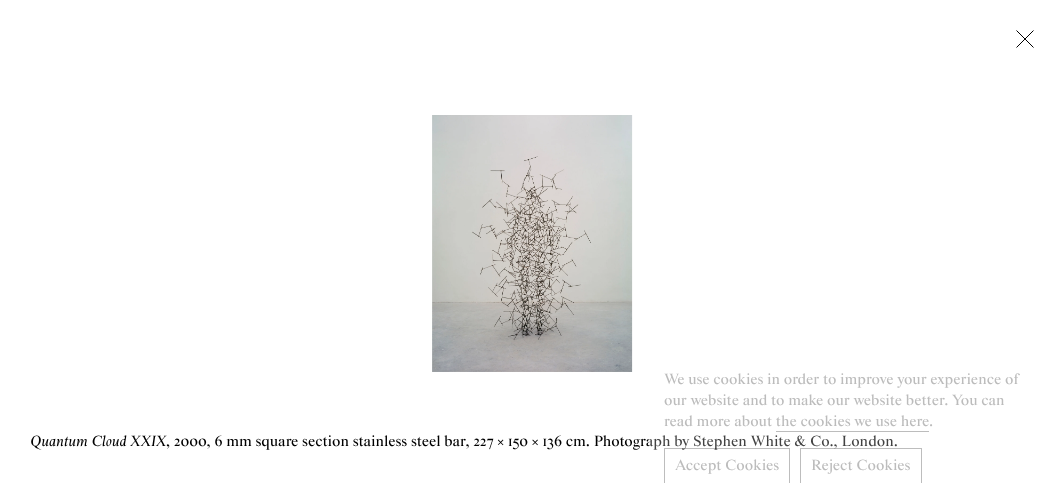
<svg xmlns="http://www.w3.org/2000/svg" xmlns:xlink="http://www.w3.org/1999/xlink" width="1064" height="483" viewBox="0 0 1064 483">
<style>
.cls-1{font:15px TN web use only;fill:#bcbcbc}
.cls-2{font:italic 15px TN web use only;fill:#000000}
.cls-3{font:15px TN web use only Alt;fill:#000000}
</style>
<rect width="100%" height="100%" fill="#ffffff"/>
<rect fill="#bcbcbc" x="776" y="431" width="153" height="1"/>
<path fill="none" stroke="#000000" d="M1016.5 47.5L1033.5 30.5M1016.5 30.5L1033.5 47.5"/>
<image xlink:href="image0.png" x="432" y="115" width="201" height="257"/>
<text class="cls-1"><tspan x="664" y="384">We use cookies in order to improve your experience of</tspan><tspan x="664" y="405">our website and to make our website better. You can</tspan><tspan x="664" y="426">read more about the cookies we use here.</tspan></text>
<text class="cls-2" x="30" y="446">Quantum Cloud XXIX</text>
<text class="cls-3" x="166" y="446">, 2000, 6 mm square section stainless steel bar, 227 × 150 × 136 cm. Photograph by Stephen White &amp; Co., London.</text>
<rect fill="#ffffff" fill-opacity="0.26" x="649" y="435" width="248" height="15"/>
<rect fill="none" stroke="#000000" stroke-opacity="0.26" x="800.5" y="448.5" width="121" height="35"/>
<text class="cls-1" x="811" y="470">Reject Cookies</text>
<rect fill="none" stroke="#000000" stroke-opacity="0.26" x="664.5" y="448.5" width="125" height="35"/>
<text class="cls-1" x="675" y="470">Accept Cookies</text>
</svg>
